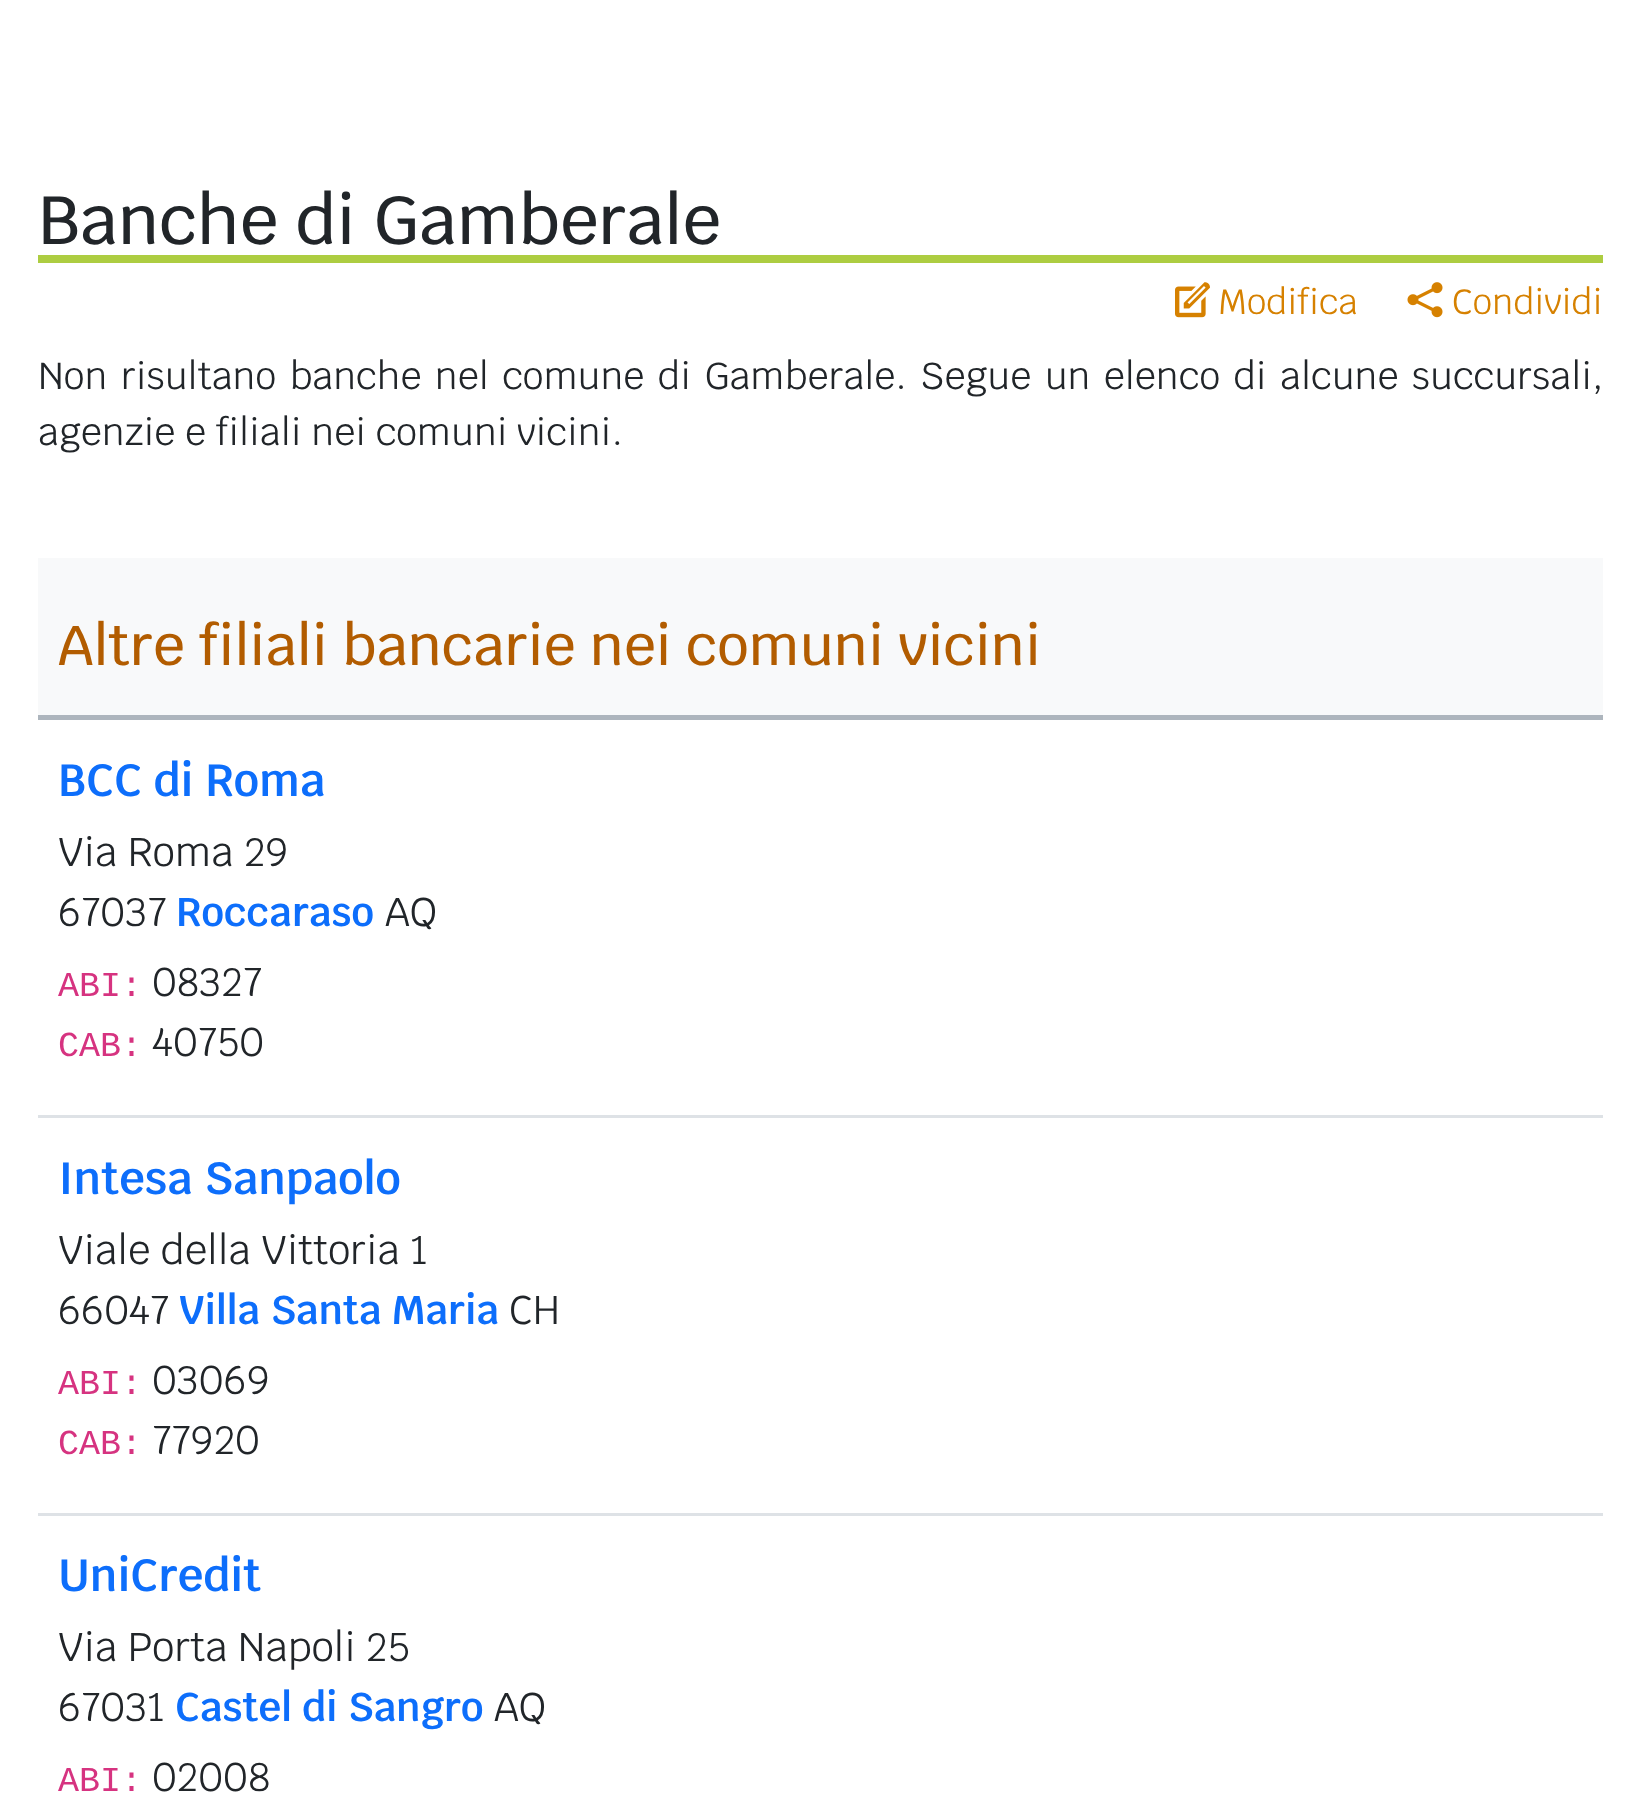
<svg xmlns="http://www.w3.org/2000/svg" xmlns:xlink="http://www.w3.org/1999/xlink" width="1640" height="1797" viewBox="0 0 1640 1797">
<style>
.cls-1{font:500 67.75px Krub;fill:#212529}
.cls-2{font:35px Krub;fill:#d68100}
.cls-3{font:37.5px Krub;fill:#212529}
.cls-4{font:500 55.9px Krub;fill:#b25c00}
.cls-5{font:600 45px Krub;fill:#0d6efb}
.cls-6{font:40px Krub;fill:#212529}
.cls-7{font:600 40px Krub;fill:#0d6efb}
.cls-8{font:35px Liberation Mono;fill:#d63380}
</style>
<rect width="100%" height="100%" fill="#ffffff"/>
<rect fill="#adcd41" x="38" y="255" width="1565" height="8"/>
<image xlink:href="image0.png" x="1175" y="282" width="35" height="36"/>
<image xlink:href="image1.png" x="1407" y="282" width="36" height="36"/>
<rect fill="#f8f9fa" x="38" y="558" width="1565" height="157"/>
<rect fill="#adb5bd" x="38" y="715" width="1565" height="5"/>
<rect fill="#dee2e6" x="38" y="1115" width="1565" height="3"/>
<rect fill="#dee2e6" x="38" y="1513" width="1565" height="3"/>
<text class="cls-1" x="38" y="244">Banche di Gamberale</text>
<text class="cls-2" x="1218" y="314">Modifica</text>
<text class="cls-2" x="1452" y="314">Condividi</text>
<text class="cls-3"><tspan x="38" y="389" word-spacing="3.75">Non risultano banche nel comune di Gamberale. Segue un elenco di alcune succursali,</tspan><tspan x="38" y="445">agenzie e filiali nei comuni vicini.</tspan></text>
<text class="cls-4" x="58" y="665">Altre filiali bancarie nei comuni vicini</text>
<text class="cls-5" x="58" y="796">BCC di Roma</text>
<text class="cls-6"><tspan x="58" y="866">Via Roma 29</tspan><tspan x="58" y="926">67037</tspan></text>
<text class="cls-7" x="176" y="926">Roccaraso</text>
<text class="cls-6" x="385" y="926">AQ</text>
<text class="cls-8" x="58" y="996">ABI:</text>
<text class="cls-6" x="152" y="996">08327</text>
<text class="cls-8" x="58" y="1056">CAB:</text>
<text class="cls-6" x="152" y="1056">40750</text>
<text class="cls-5" x="58" y="1194">Intesa Sanpaolo</text>
<text class="cls-6"><tspan x="58" y="1264">Viale della Vittoria 1</tspan><tspan x="58" y="1324">66047</tspan></text>
<text class="cls-7" x="179" y="1324">Villa Santa Maria</text>
<text class="cls-6" x="509" y="1324">CH</text>
<text class="cls-8" x="58" y="1394">ABI:</text>
<text class="cls-6" x="152" y="1394">03069</text>
<text class="cls-8" x="58" y="1454">CAB:</text>
<text class="cls-6" x="152" y="1454">77920</text>
<text class="cls-5" x="58" y="1591">UniCredit</text>
<text class="cls-6"><tspan x="58" y="1661">Via Porta Napoli 25</tspan><tspan x="58" y="1721">67031</tspan></text>
<text class="cls-7" x="175" y="1721">Castel di Sangro</text>
<text class="cls-6" x="494" y="1721">AQ</text>
<text class="cls-8" x="58" y="1791">ABI:</text>
<text class="cls-6" x="152" y="1791">02008</text>
</svg>
